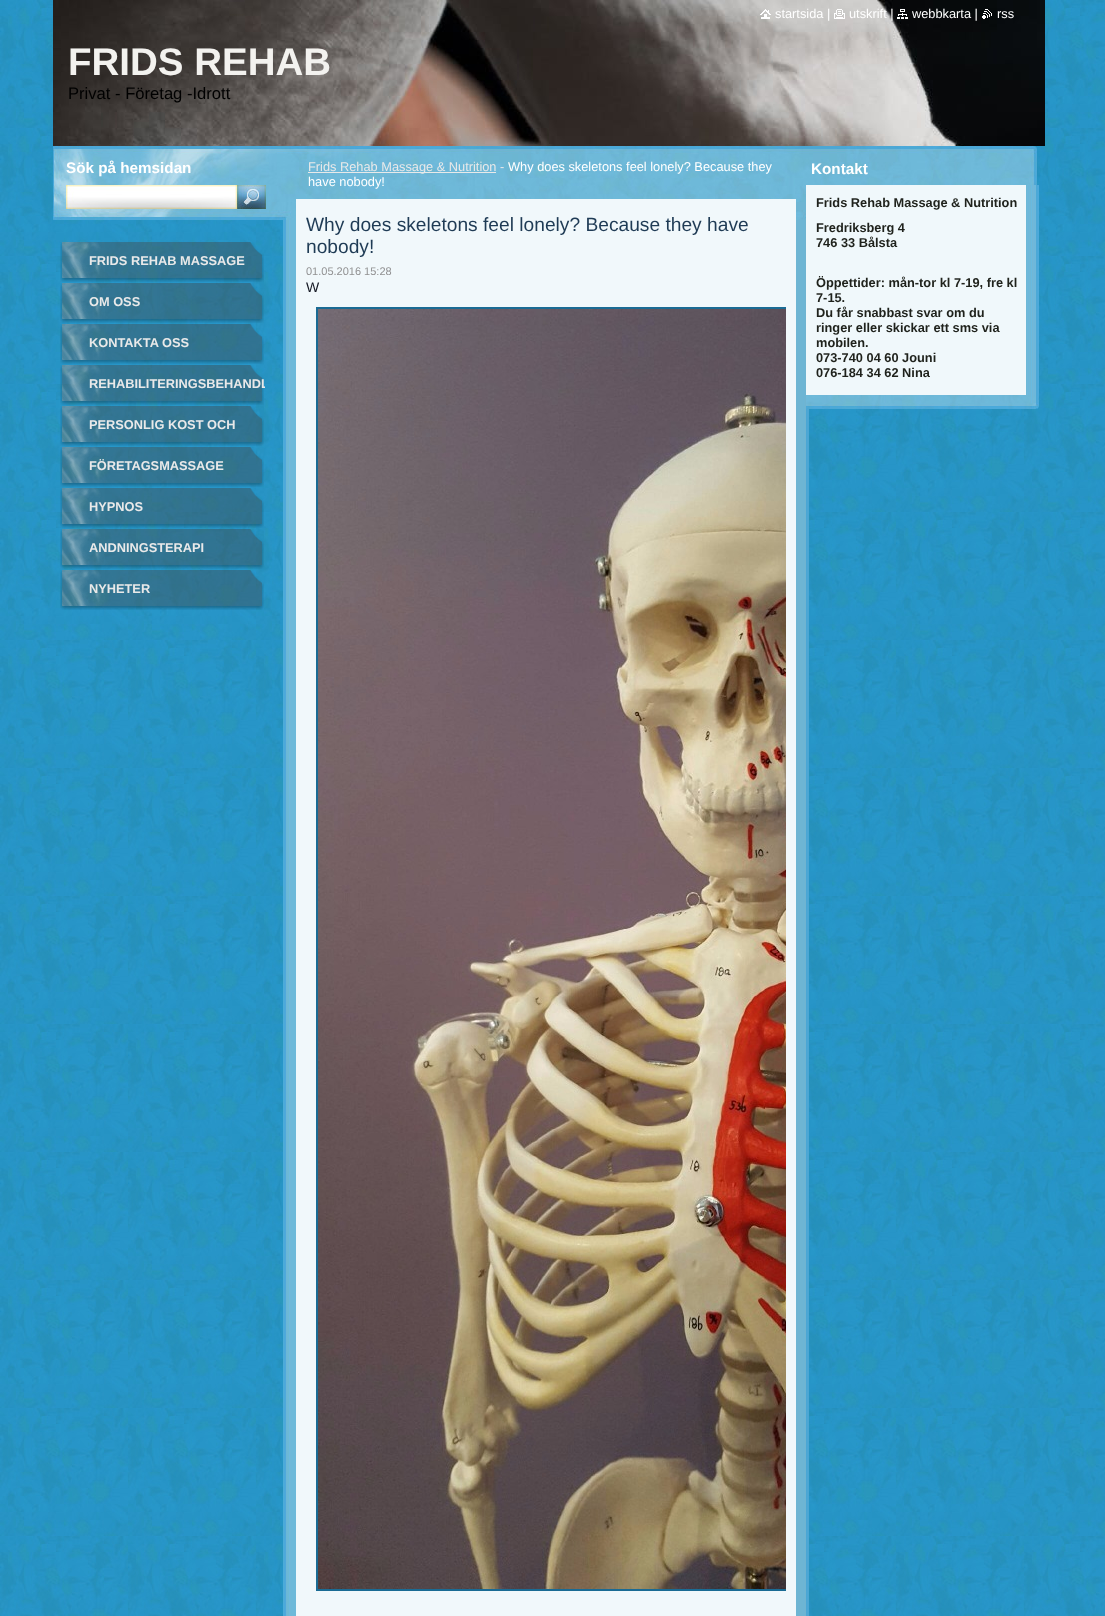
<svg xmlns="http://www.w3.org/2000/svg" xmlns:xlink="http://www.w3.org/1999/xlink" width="1105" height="1616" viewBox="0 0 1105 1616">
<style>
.cls-1{font:12.8px Liberation Sans;fill:#ffffff}
.cls-2{font:bold 38.5px Liberation Sans;fill:#f3f2ef}
.cls-3{font:16.6px Liberation Sans;fill:#000000}
.cls-4{font:bold 15.25px Liberation Sans;fill:#ffffff}
.cls-5{font:12.8px Liberation Sans;fill:#e9e9e9}
.cls-6{font:19.2px Liberation Sans;fill:#1f3b55}
.cls-7{font:11px Liberation Sans;fill:#919192}
.cls-8{font:14px Liberation Sans;fill:#141823}
.cls-9{font:bold 12.8px Liberation Sans;fill:#1f221c}
.cls-10{font:bold 12.8px Liberation Sans;fill:#e9e9e9}
</style>
<defs>
<clipPath id="clip1"><rect x="306" y="263" width="480" height="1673"/></clipPath>
<clipPath id="clip2"><rect x="59" y="364" width="206" height="41"/></clipPath>
</defs>
<rect width="100%" height="100%" fill="#ffffff"/>
<image xlink:href="image0.png" x="0" y="0" width="1105" height="1616"/>
<image xlink:href="image5.png" x="53" y="0" width="992" height="146"/>
<image xlink:href="image1.png" x="760" y="9" width="11" height="10"/>
<image xlink:href="image2.png" x="834" y="9" width="11" height="10"/>
<image xlink:href="image3.png" x="897" y="9" width="11" height="10"/>
<image xlink:href="image4.png" x="982" y="9" width="10" height="10"/>
<image xlink:href="image6.png" x="53" y="146" width="984" height="74"/>
<image xlink:href="image7.png" x="66" y="185" width="171" height="24"/>
<image xlink:href="image8.png" x="237" y="185" width="29" height="24"/>
<image xlink:href="image9.png" x="283" y="220" width="526" height="1396"/>
<image xlink:href="image10.png" x="283" y="146" width="526" height="74"/>
<rect fill="#e9e9e9" x="308" y="172" width="188" height="1"/>
<rect fill="#f1f8fb" x="296" y="199" width="500" height="1417"/>
<g clip-path="url(#clip1)">
<rect fill="none" stroke="#1a6b94" stroke-width="2" x="317" y="308" width="722" height="1282"/>
</g>
<image xlink:href="image11.png" x="318" y="309" width="468" height="1280"/>
<image xlink:href="image12.png" x="806" y="185" width="233" height="210"/>
<image xlink:href="image13.png" x="806" y="395" width="233" height="14"/>
<image xlink:href="image14.png" x="60" y="242" width="204" height="40"/>
<image xlink:href="image15.png" x="60" y="283" width="204" height="40"/>
<image xlink:href="image16.png" x="60" y="324" width="204" height="40"/>
<image xlink:href="image17.png" x="60" y="365" width="204" height="40"/>
<image xlink:href="image18.png" x="60" y="406" width="204" height="40"/>
<image xlink:href="image19.png" x="60" y="447" width="204" height="40"/>
<image xlink:href="image20.png" x="60" y="488" width="204" height="40"/>
<image xlink:href="image21.png" x="60" y="529" width="204" height="40"/>
<image xlink:href="image22.png" x="60" y="570" width="204" height="40"/>
<text class="cls-1" x="775" y="18">startsida |</text>
<text class="cls-1" x="849" y="18">utskrift |</text>
<text class="cls-1" x="912" y="18">webbkarta |</text>
<text class="cls-1" x="997" y="18">rss</text>
<text class="cls-2" x="68" y="75">FRIDS REHAB</text>
<text class="cls-3" x="68" y="99">Privat - Företag -Idrott</text>
<text class="cls-4" x="66" y="173">Sök på hemsidan</text>
<text class="cls-5" x="308" y="171">Frids Rehab Massage &amp; Nutrition -</text>
<text class="cls-1" x="508" y="171">Why does skeletons feel lonely? Because they</text>
<text class="cls-1" x="308" y="186">have nobody!</text>
<text class="cls-6"><tspan x="306" y="231">Why does skeletons feel lonely? Because they have</tspan><tspan x="306" y="253">nobody!</tspan></text>
<text class="cls-7" x="306" y="275">01.05.2016 15:28</text>
<text class="cls-8" x="306" y="292">W</text>
<text class="cls-4" x="811" y="174">Kontakt</text>
<text class="cls-9"><tspan x="816" y="207">Frids Rehab Massage &amp; Nutrition</tspan><tspan x="816" y="232">Fredriksberg 4</tspan><tspan x="816" y="247">746 33 Bålsta</tspan></text>
<text class="cls-9"><tspan x="816" y="287">Öppettider: mån-tor kl 7-19, fre kl</tspan><tspan x="816" y="302">7-15.</tspan><tspan x="816" y="317">Du får snabbast svar om du</tspan><tspan x="816" y="332">ringer eller skickar ett sms via</tspan><tspan x="816" y="347">mobilen.</tspan><tspan x="816" y="362">073-740 04 60 Jouni</tspan><tspan x="816" y="377">076-184 34 62 Nina</tspan></text>
<text class="cls-10" x="89" y="265">FRIDS REHAB MASSAGE</text>
<text class="cls-10" x="89" y="306">OM OSS</text>
<text class="cls-10" x="89" y="347">KONTAKTA OSS</text>
<g clip-path="url(#clip2)">
<text class="cls-10" x="89" y="388">REHABILITERINGSBEHANDL</text>
</g>
<text class="cls-10" x="89" y="429">PERSONLIG KOST OCH</text>
<text class="cls-10" x="89" y="470">FÖRETAGSMASSAGE</text>
<text class="cls-10" x="89" y="511">HYPNOS</text>
<text class="cls-10" x="89" y="552">ANDNINGSTERAPI</text>
<text class="cls-10" x="89" y="593">NYHETER</text>
</svg>
